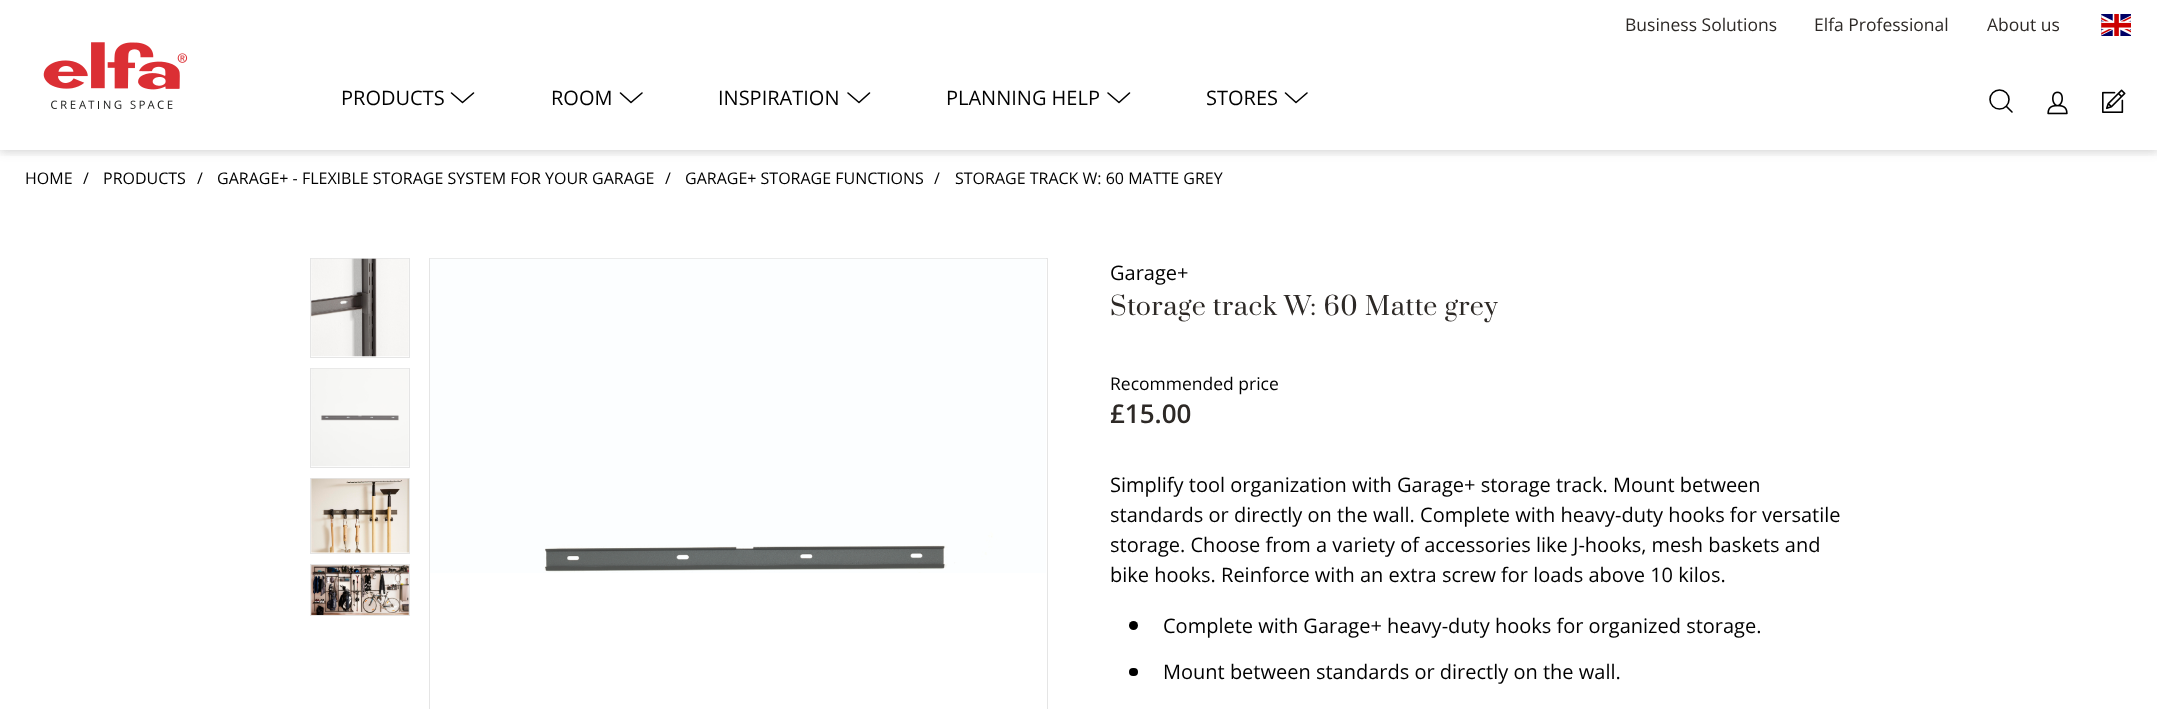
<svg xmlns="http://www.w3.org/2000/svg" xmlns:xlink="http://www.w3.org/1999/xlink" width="2157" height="709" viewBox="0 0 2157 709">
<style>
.cls-1{font:17.5px Open Sans;fill:#2d2926}
.cls-2{font:20px Open Sans;fill:#000000}
.cls-3{font:16px Open Sans;fill:#000000}
.cls-4{font:25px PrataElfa;letter-spacing:0.6px;fill:#2d2926}
.cls-5{font:17.5px Open Sans;fill:#000000}
.cls-6{font:600 26px Open Sans;fill:#2d2926}
</style>
<defs>
<clipPath id="clip1"><rect x="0" y="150" width="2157" height="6"/></clipPath>
</defs>
<rect width="100%" height="100%" fill="#ffffff"/>
<rect fill="#000000" fill-opacity="0.1" filter="blur(6px)" x="-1" y="-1" width="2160" height="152"/>
<rect fill="#ffffff" x="0" y="0" width="2157" height="150"/>
<g clip-path="url(#clip1)">
<rect fill="#000000" fill-opacity="0.1" filter="blur(6px)" x="-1" y="-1" width="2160" height="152"/>
</g>
<image xlink:href="image0.png" x="2101" y="14" width="30" height="22"/>
<image xlink:href="image1.png" x="43" y="42" width="145" height="67"/>
<path fill="none" stroke="#000000" stroke-width="1.6" stroke-linecap="round" stroke-linejoin="round" d="M473.5 93L462.5 102.5L451.5 93"/>
<path fill="none" stroke="#000000" stroke-width="1.6" stroke-linecap="round" stroke-linejoin="round" d="M642 93L631 102.5L620.5 93"/>
<path fill="none" stroke="#000000" stroke-width="1.6" stroke-linecap="round" stroke-linejoin="round" d="M869.5 93L859 102.5L848 93"/>
<path fill="none" stroke="#000000" stroke-width="1.6" stroke-linecap="round" stroke-linejoin="round" d="M1129.5 93L1119 102.5L1108 93"/>
<path fill="none" stroke="#000000" stroke-width="1.6" stroke-linecap="round" stroke-linejoin="round" d="M1307 93L1296 102.5L1285.5 93"/>
<circle fill="none" stroke="#000000" stroke-width="1.6" cx="1999.5" cy="99.5" r="9.5"/>
<path fill="none" stroke="#000000" stroke-width="1.6" stroke-linecap="round" stroke-linejoin="round" d="M2006.5 106.5L2012 112"/>
<image xlink:href="image2.png" x="2047" y="91" width="21" height="24"/>
<image xlink:href="image3.png" x="2102" y="89" width="24" height="24"/>
<rect fill="none" stroke="#e5e5e5" x="310.5" y="258.5" width="99" height="99"/>
<image xlink:href="image4.png" x="311" y="258" width="98" height="99"/>
<rect fill="none" stroke="#e5e5e5" x="310.5" y="368.5" width="99" height="99"/>
<image xlink:href="image5.png" x="311" y="368" width="98" height="99"/>
<rect fill="none" stroke="#e5e5e5" x="310.5" y="478.5" width="99" height="75"/>
<image xlink:href="image6.png" x="311" y="478" width="98" height="75"/>
<rect fill="none" stroke="#e5e5e5" x="310.5" y="564.5" width="99" height="51"/>
<image xlink:href="image7.png" x="311" y="565" width="98" height="50"/>
<rect fill="none" stroke="#e5e5e5" x="429.5" y="258.5" width="618" height="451"/>
<image xlink:href="image8.png" x="430" y="258" width="616" height="315"/>
<circle fill="#000000" cx="1133.5" cy="625.5" r="4.5"/>
<rect fill="#000000" x="1129" y="668" width="9" height="8" rx="4"/>
<text class="cls-1" x="1625" y="31">Business Solutions</text>
<text class="cls-1" x="1814" y="31">Elfa Professional</text>
<text class="cls-1" x="1987" y="31">About us</text>
<text class="cls-2" x="341" y="105">PRODUCTS</text>
<text class="cls-2" x="551" y="105">ROOM</text>
<text class="cls-2" x="718" y="105">INSPIRATION</text>
<text class="cls-2" x="946" y="105">PLANNING HELP</text>
<text class="cls-2" x="1206" y="105">STORES</text>
<text class="cls-3" x="25" y="184">HOME</text>
<text class="cls-3" x="83" y="184">/</text>
<text class="cls-3" x="103" y="184">PRODUCTS</text>
<text class="cls-3" x="197" y="184">/</text>
<text class="cls-3" x="217" y="184">GARAGE+ - FLEXIBLE STORAGE SYSTEM FOR YOUR GARAGE</text>
<text class="cls-3" x="665" y="184">/</text>
<text class="cls-3" x="685" y="184">GARAGE+ STORAGE FUNCTIONS</text>
<text class="cls-3" x="934" y="184">/</text>
<text class="cls-3" x="955" y="184">STORAGE TRACK W: 60 MATTE GREY</text>
<text class="cls-2" x="1110" y="280">Garage+</text>
<text class="cls-4" x="1110" y="315">Storage track W: 60 Matte grey</text>
<text class="cls-5" x="1110" y="390">Recommended price</text>
<text class="cls-6" x="1110" y="423">£15.00</text>
<text class="cls-2"><tspan x="1110" y="492">Simplify tool organization with Garage+ storage track. Mount between</tspan><tspan x="1110" y="522">standards or directly on the wall. Complete with heavy-duty hooks for versatile</tspan><tspan x="1110" y="552">storage. Choose from a variety of accessories like J-hooks, mesh baskets and</tspan><tspan x="1110" y="582">bike hooks. Reinforce with an extra screw for loads above 10 kilos.</tspan></text>
<text class="cls-2" x="1163" y="633">Complete with Garage+ heavy-duty hooks for organized storage.</text>
<text class="cls-2" x="1163" y="679">Mount between standards or directly on the wall.</text>
</svg>
